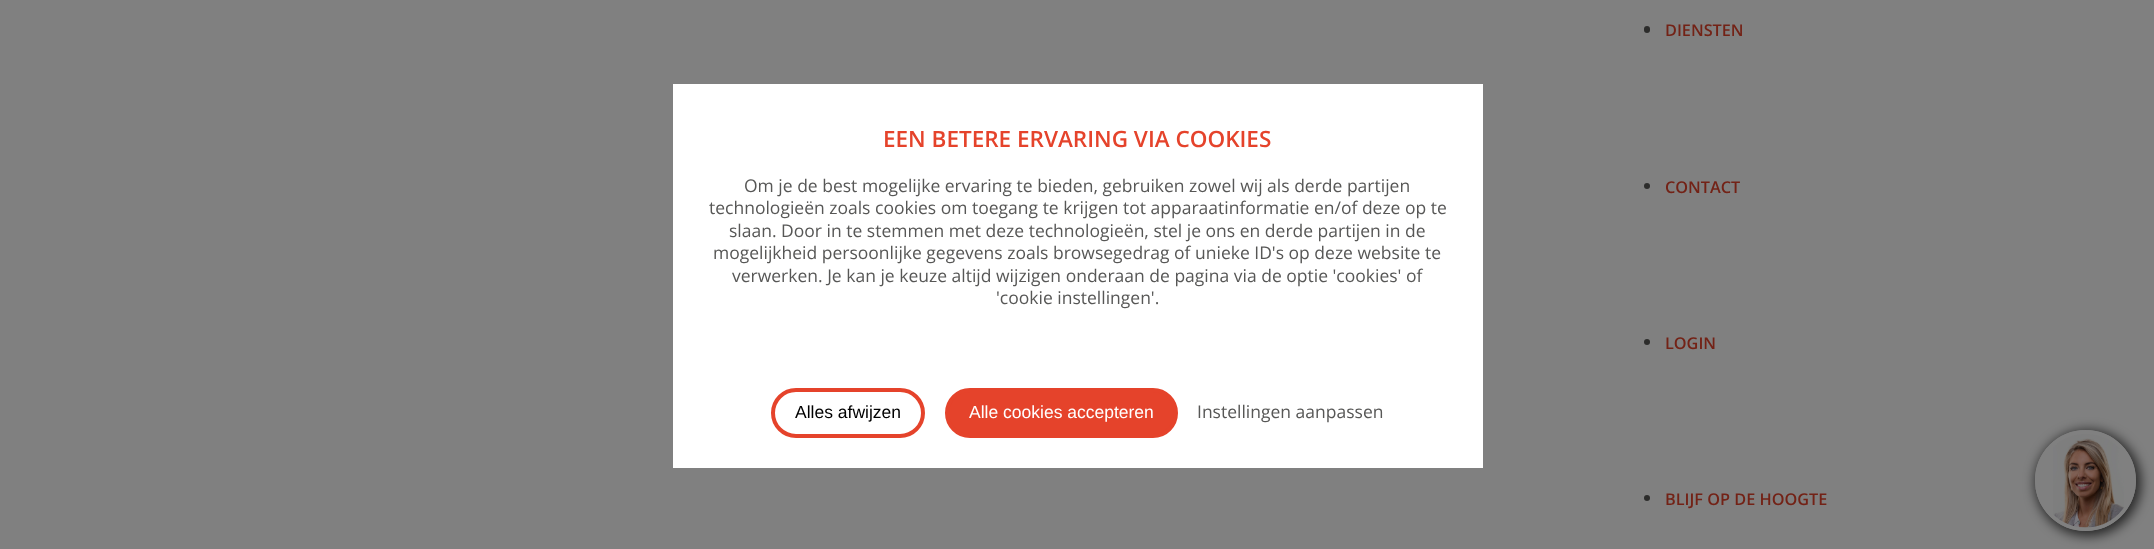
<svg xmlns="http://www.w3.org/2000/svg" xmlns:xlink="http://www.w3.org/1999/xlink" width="2154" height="549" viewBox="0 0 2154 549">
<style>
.cls-1{font:600 22.5px Open Sans;fill:#e5432b}
.cls-2{font:17.5px Open Sans;fill:#575756}
.cls-3{font:17.5px Liberation Sans;fill:#000000}
.cls-4{font:17.5px Liberation Sans;fill:#ffffff}
.cls-5{font:600 16.25px Open Sans;fill:#732216}
</style>
<defs>
<clipPath id="clip1"><path d="M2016 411H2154V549H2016ZM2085.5 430C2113.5 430 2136 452.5 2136 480.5C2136 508.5 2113.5 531 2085.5 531C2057.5 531 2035 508.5 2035 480.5C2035 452.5 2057.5 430 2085.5 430Z" clip-rule="evenodd"/></clipPath>
</defs>
<rect width="100%" height="100%" fill="#808080"/>
<rect fill="#ffffff" x="673" y="84" width="810" height="384"/>
<rect fill="none" stroke="#e5432b" stroke-width="4" x="773" y="390" width="150" height="46" rx="23"/>
<rect fill="#e5432b" stroke="#e5432b" stroke-width="4" x="947" y="390" width="229" height="46" rx="23"/>
<rect fill="#2c2c2b" x="1644" y="26" width="6" height="7" rx="3"/>
<circle fill="#2c2c2b" cx="1647" cy="186" r="3"/>
<circle fill="#2c2c2b" cx="1647" cy="342" r="3"/>
<circle fill="#2c2c2b" cx="1647" cy="498" r="3"/>
<g clip-path="url(#clip1)">
<rect fill="#000000" fill-opacity="0.7" filter="blur(6px)" x="2035" y="430" width="106" height="106" rx="53"/>
</g>
<circle fill="none" stroke="#808080" stroke-width="4" cx="2085.5" cy="480.5" r="48.5"/>
<image xlink:href="image0.png" x="2053" y="434" width="71" height="94"/>
<text class="cls-1" x="883" y="147">EEN BETERE ERVARING VIA COOKIES</text>
<text class="cls-2" x="744" y="192">Om je de best mogelijke ervaring te bieden, gebruiken zowel wij als derde partijen</text>
<text class="cls-2" x="709" y="214">technologieën zoals cookies om toegang te krijgen tot apparaatinformatie en/of deze op te</text>
<text class="cls-2" x="729" y="237">slaan. Door in te stemmen met deze technologieën, stel je ons en derde partijen in de</text>
<text class="cls-2" x="713" y="259">mogelijkheid persoonlijke gegevens zoals browsegedrag of unieke ID's op deze website te</text>
<text class="cls-2" x="732" y="282">verwerken. Je kan je keuze altijd wijzigen onderaan de pagina via de optie 'cookies' of</text>
<text class="cls-2" x="996" y="304">'cookie instellingen'.</text>
<text class="cls-3" x="795" y="418">Alles afwijzen</text>
<text class="cls-4" x="969" y="418">Alle cookies accepteren</text>
<text class="cls-2" x="1197" y="418">Instellingen aanpassen</text>
<text class="cls-5" x="1665" y="36">DIENSTEN</text>
<text class="cls-5" x="1665" y="193">CONTACT</text>
<text class="cls-5" x="1665" y="349">LOGIN</text>
<text class="cls-5" x="1665" y="505">BLIJF OP DE HOOGTE</text>
</svg>
